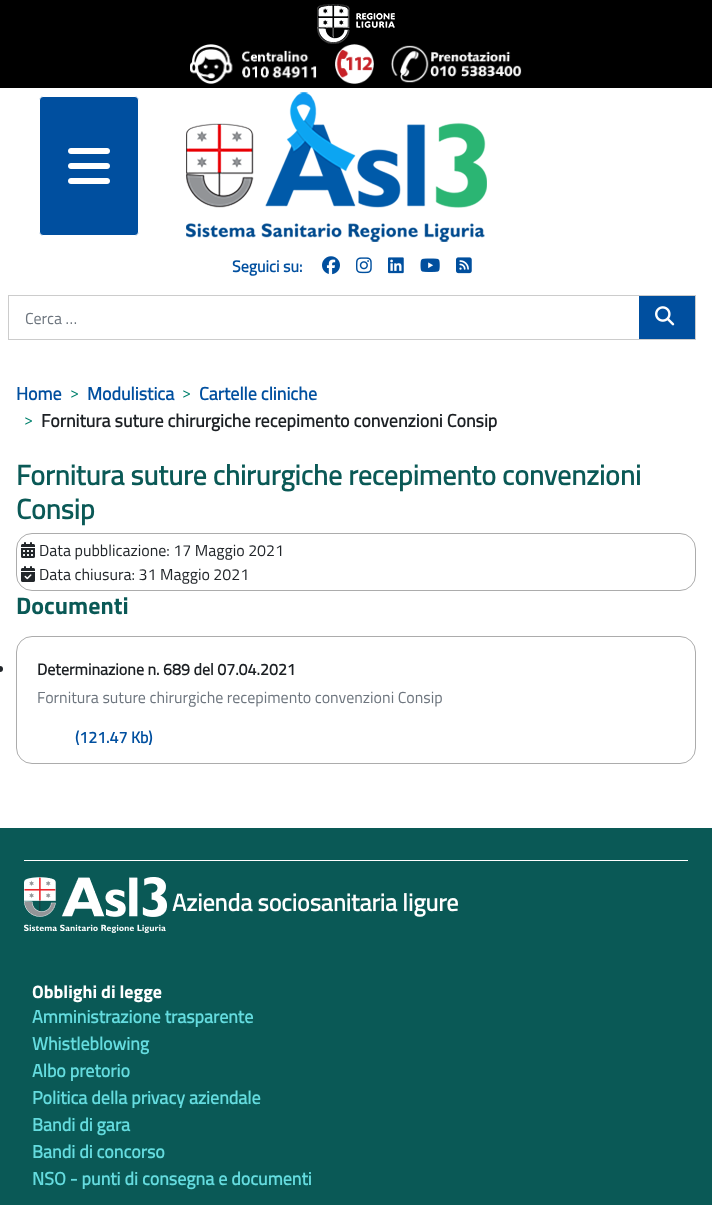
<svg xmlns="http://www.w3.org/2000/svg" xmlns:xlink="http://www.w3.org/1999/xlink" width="712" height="1205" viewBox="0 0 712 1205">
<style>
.cls-1{font:bold 16px Titillium Web;fill:#004f9f}
.cls-2{font:16px Titillium Web;fill:#6d757e}
.cls-3{font:bold 18px Titillium Web;fill:#004f9f}
.cls-4{font:16px Titillium Web;fill:#00816d}
.cls-5{font:bold 18px Titillium Web;fill:#1c2024}
.cls-6{font:bold 28px Titillium Web;fill:#0a5956}
.cls-7{font:16px Titillium Web;fill:#22262a}
.cls-8{font:bold 24px 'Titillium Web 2';fill:#0a5956}
.cls-9{font:bold 16px Titillium Web;fill:#1c2024}
.cls-10{font:bold 24px Titillium Web;fill:#ffffff}
.cls-11{font:bold 18px 'Titillium Web 2';fill:#ffffff}
.cls-12{font:bold 18px Titillium Web;fill:#65dcdf}
</style>
<rect width="100%" height="100%" fill="#ffffff"/>
<rect fill="#000000" x="0" y="0" width="712" height="88"/>
<image xlink:href="image0.png" x="317" y="4" width="78" height="40"/>
<image xlink:href="image1.png" x="190" y="44" width="127" height="40"/>
<image xlink:href="image2.png" x="335" y="44" width="39" height="40"/>
<image xlink:href="image3.png" x="391" y="45" width="131" height="38"/>
<rect fill="#004f9f" stroke="#ffffff" x="39.5" y="96.5" width="99" height="139" rx="3.5"/>
<image xlink:href="image4.png" x="68" y="148" width="42" height="36"/>
<image xlink:href="image5.png" x="186" y="92" width="301" height="150"/>
<image xlink:href="image6.png" x="322" y="256" width="18" height="19"/>
<image xlink:href="image7.png" x="356" y="257" width="16" height="17"/>
<image xlink:href="image8.png" x="388" y="257" width="16" height="17"/>
<image xlink:href="image9.png" x="420" y="258" width="20" height="14"/>
<image xlink:href="image10.png" x="456" y="257" width="16" height="17"/>
<rect fill="none" stroke="#cccccc" x="8.5" y="295.5" width="687" height="44"/>
<rect fill="#004f9f" x="639" y="296" width="56" height="43"/>
<image xlink:href="image11.png" x="655" y="306" width="20" height="20"/>
<rect fill="none" stroke="#acacac" x="16.5" y="533.5" width="679" height="57" rx="15.5"/>
<image xlink:href="image12.png" x="21" y="542" width="14" height="16"/>
<image xlink:href="image13.png" x="21" y="566" width="14" height="16"/>
<rect fill="none" stroke="#acacac" x="16.5" y="636.5" width="679" height="127" rx="15.5"/>
<circle fill="#22262a" cx="0" cy="669" r="3"/>
<rect fill="#0a5956" x="0" y="828" width="712" height="377"/>
<rect fill="#ffffff" x="24" y="860" width="664" height="1"/>
<image xlink:href="image14.png" x="24" y="877" width="143" height="56"/>
<text class="cls-1" x="232" y="272">Seguici su:</text>
<text class="cls-2" x="25" y="324">Cerca …</text>
<text class="cls-3" x="16" y="400">Home</text>
<text class="cls-4" x="70" y="398">&gt;</text>
<text class="cls-3" x="87" y="400">Modulistica</text>
<text class="cls-4" x="182" y="398">&gt;</text>
<text class="cls-3" x="199" y="400">Cartelle cliniche</text>
<text class="cls-4" x="24" y="425">&gt;</text>
<text class="cls-5" x="41" y="427">Fornitura suture chirurgiche recepimento convenzioni Consip</text>
<text class="cls-6"><tspan x="16" y="485">Fornitura suture chirurgiche recepimento convenzioni</tspan><tspan x="16" y="519">Consip</tspan></text>
<text class="cls-7"><tspan x="39" y="556">Data pubblicazione: 17 Maggio 2021</tspan><tspan x="39" y="580">Data chiusura: 31 Maggio 2021</tspan></text>
<text class="cls-8" x="16" y="614">Documenti</text>
<text class="cls-9" x="37" y="675">Determinazione n. 689 del 07.04.2021</text>
<text class="cls-2" x="37" y="703">Fornitura suture chirurgiche recepimento convenzioni Consip</text>
<text class="cls-1" x="75" y="743">(121.47 Kb)</text>
<text class="cls-10" x="172" y="911">Azienda sociosanitaria ligure</text>
<text class="cls-11" x="32" y="998">Obblighi di legge</text>
<text class="cls-12"><tspan x="32" y="1023">Amministrazione trasparente</tspan><tspan x="32" y="1050">Whistleblowing</tspan><tspan x="32" y="1077">Albo pretorio</tspan><tspan x="32" y="1104">Politica della privacy aziendale</tspan><tspan x="32" y="1131">Bandi di gara</tspan><tspan x="32" y="1158">Bandi di concorso</tspan><tspan x="32" y="1185">NSO - punti di consegna e documenti</tspan></text>
</svg>
